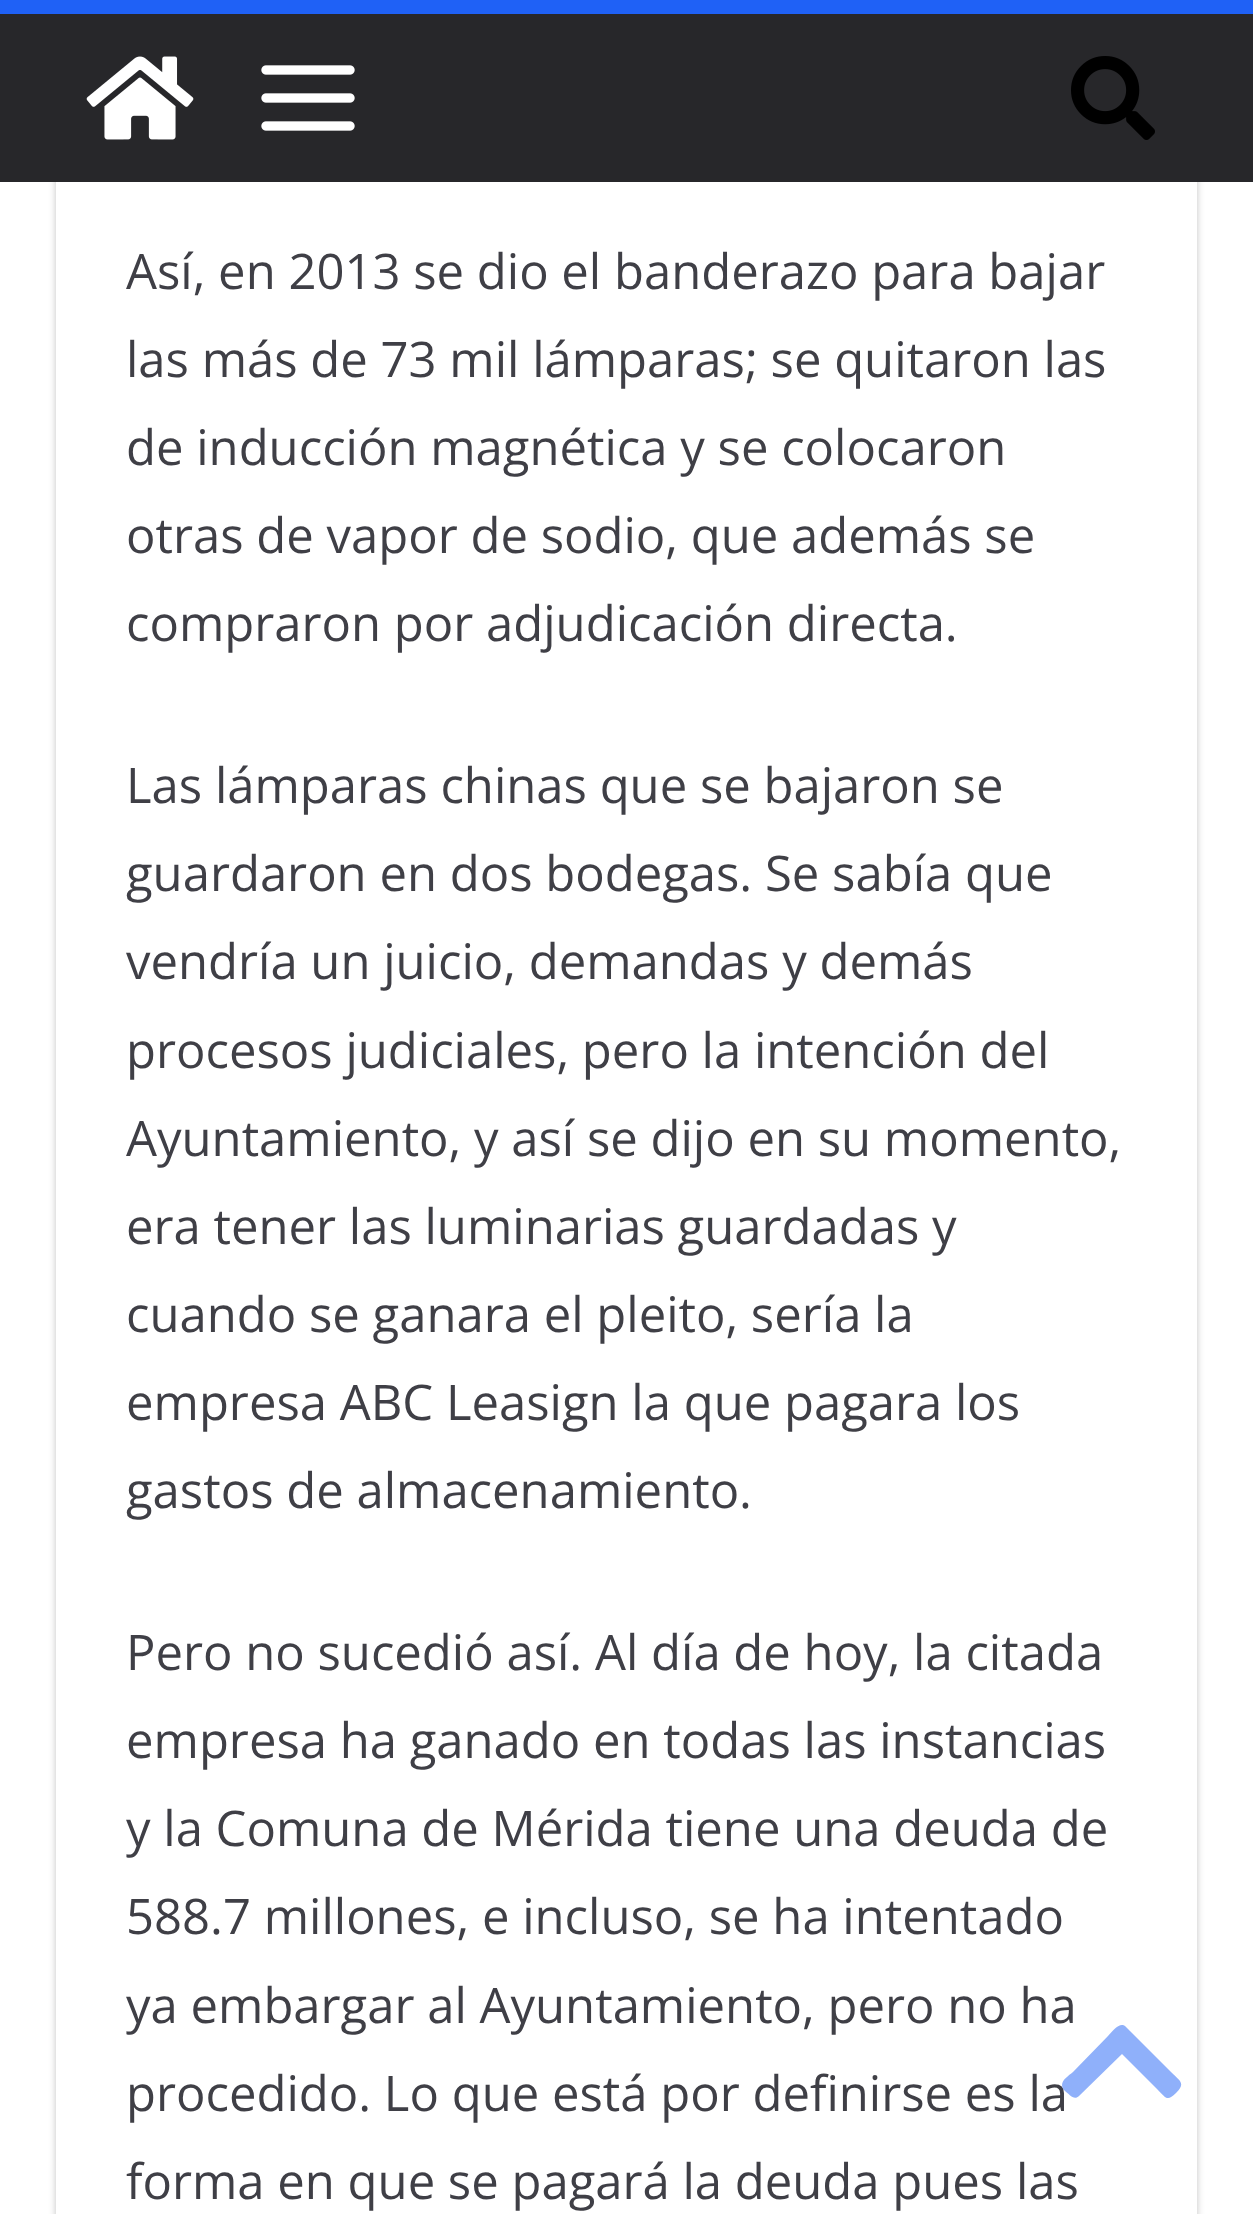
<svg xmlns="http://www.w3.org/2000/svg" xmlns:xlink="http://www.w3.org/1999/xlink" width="1253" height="2214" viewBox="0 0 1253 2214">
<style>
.cls-1{font:49px Open Sans;fill:#3f3f46}
</style>
<defs>
<clipPath id="clip1"><path d="M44 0H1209V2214H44ZM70-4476H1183C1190.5-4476 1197-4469.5 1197-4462V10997C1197 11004.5 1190.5 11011 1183 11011H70C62.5 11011 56 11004.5 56 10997V-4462C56-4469.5 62.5-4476 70-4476Z" clip-rule="evenodd"/></clipPath>
</defs>
<rect width="100%" height="100%" fill="#ffffff"/>
<g clip-path="url(#clip1)">
<rect fill="#000000" fill-opacity="0.24" filter="blur(3.5px)" x="56" y="-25" width="1141" height="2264" rx="14"/>
</g>
<rect fill="#27272a" x="0" y="14" width="1253" height="168"/>
<rect fill="#1f61f6" x="0" y="0" width="1253" height="14"/>
<image xlink:href="image0.png" x="86" y="56" width="108" height="84"/>
<image xlink:href="image1.png" x="261" y="65" width="94" height="66"/>
<image xlink:href="image2.png" x="1071" y="56" width="84" height="84"/>
<text class="cls-1"><tspan x="126" y="289">Así, en 2013 se dio el banderazo para bajar</tspan><tspan x="126" y="377">las más de 73 mil lámparas; se quitaron las</tspan><tspan x="126" y="465">de inducción magnética y se colocaron</tspan><tspan x="126" y="553">otras de vapor de sodio, que además se</tspan><tspan x="126" y="641">compraron por adjudicación directa.</tspan></text>
<text class="cls-1"><tspan x="126" y="803">Las lámparas chinas que se bajaron se</tspan><tspan x="126" y="891">guardaron en dos bodegas. Se sabía que</tspan><tspan x="126" y="979">vendría un juicio, demandas y demás</tspan><tspan x="126" y="1068">procesos judiciales, pero la intención del</tspan><tspan x="126" y="1156">Ayuntamiento, y así se dijo en su momento,</tspan><tspan x="126" y="1244">era tener las luminarias guardadas y</tspan><tspan x="126" y="1332">cuando se ganara el pleito, sería la</tspan><tspan x="126" y="1420">empresa ABC Leasign la que pagara los</tspan><tspan x="126" y="1508">gastos de almacenamiento.</tspan></text>
<text class="cls-1"><tspan x="126" y="1670">Pero no sucedió así. Al día de hoy, la citada</tspan><tspan x="126" y="1758">empresa ha ganado en todas las instancias</tspan><tspan x="126" y="1846">y la Comuna de Mérida tiene una deuda de</tspan><tspan x="126" y="1934">588.7 millones, e incluso, se ha intentado</tspan><tspan x="126" y="2023">ya embargar al Ayuntamiento, pero no ha</tspan><tspan x="126" y="2111">procedido. Lo que está por definirse es la</tspan><tspan x="126" y="2199">forma en que se pagará la deuda pues las</tspan></text>
<path fill="#1f61f6" fill-opacity="0.5" d="M1126 2027L1171 2072C1180 2081 1186 2083 1176 2093C1167 2102 1166 2098 1157 2089L1122 2054L1079 2096C1074 2101 1069 2094 1065 2091C1057 2083 1067 2077 1073 2072L1108 2036C1111 2033 1120 2020 1126 2027Z"/>
</svg>
